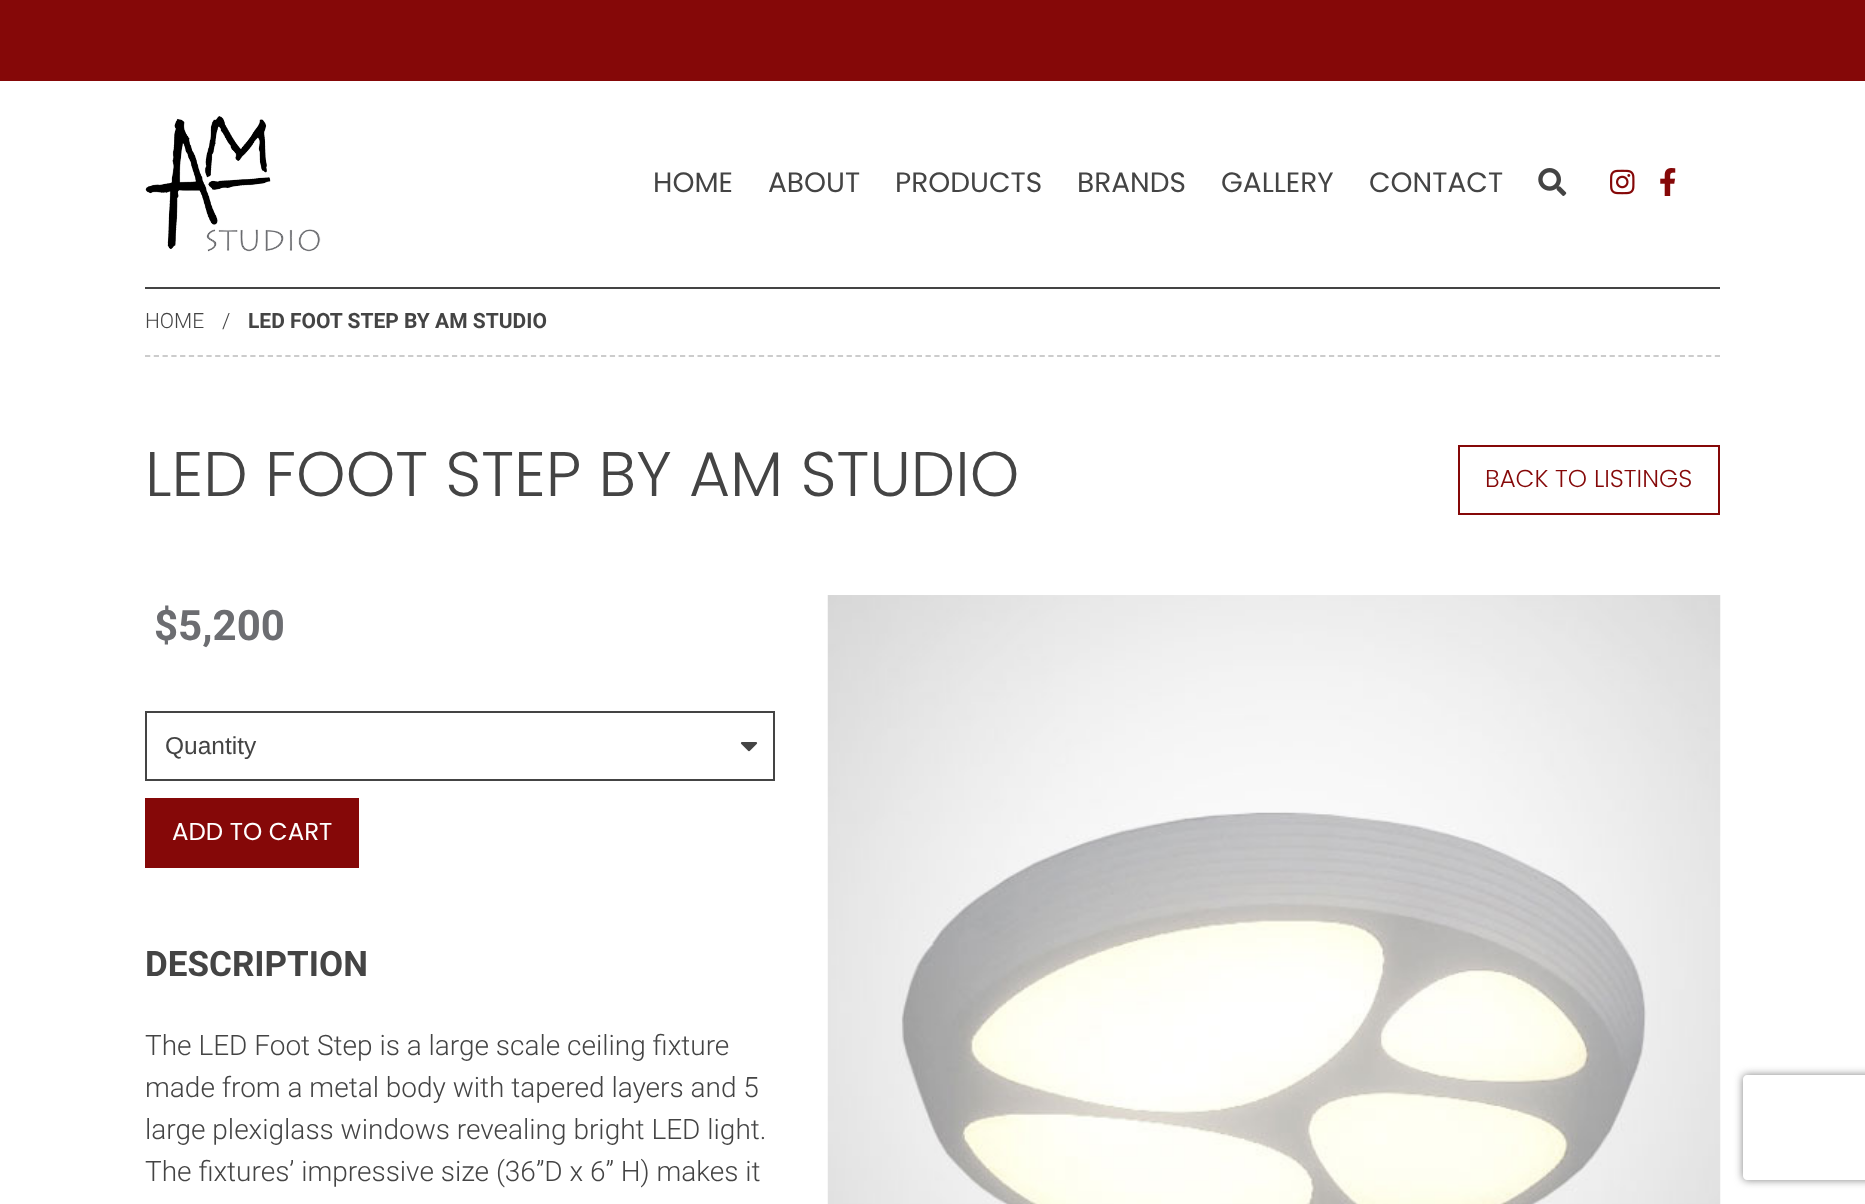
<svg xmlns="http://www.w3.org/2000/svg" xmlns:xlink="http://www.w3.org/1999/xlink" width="1865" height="1204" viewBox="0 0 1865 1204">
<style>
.cls-1{font:28px Poppins;fill:#444444}
.cls-2{font:300 21px Roboto;fill:#444444}
.cls-3{font:bold 21px Roboto;fill:#444444}
.cls-4{font:300 63px Poppins;fill:#444444}
.cls-5{font:300 24.5px Poppins;fill:#850808}
.cls-6{font:bold 42px Roboto;fill:#6c6d71}
.cls-7{font:24.5px Liberation Sans;fill:#444444}
.cls-8{font:24.5px Poppins;fill:#ffffff}
.cls-9{font:bold 35px Roboto;fill:#444444}
.cls-10{font:300 28px Roboto;fill:#444444}
</style>
<defs>
<clipPath id="clip1"><path d="M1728 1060H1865V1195H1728ZM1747 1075H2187C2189 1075 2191 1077 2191 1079V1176C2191 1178 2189 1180 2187 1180H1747C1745 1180 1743 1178 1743 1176V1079C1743 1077 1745 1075 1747 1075Z" clip-rule="evenodd"/></clipPath>
</defs>
<rect width="100%" height="100%" fill="#ffffff"/>
<rect fill="#850808" x="0" y="0" width="1865" height="81"/>
<rect fill="#444444" x="145" y="287" width="1575" height="2"/>
<image xlink:href="image0.png" x="145" y="116" width="176" height="136"/>
<image xlink:href="image1.png" x="1538" y="168" width="29" height="28"/>
<image xlink:href="image2.png" x="1610" y="169" width="25" height="26"/>
<image xlink:href="image3.png" x="1660" y="168" width="16" height="28"/>
<path fill="none" stroke="#cccccc" stroke-width="1.8" stroke-dasharray="5.25 3.52" d="M145 356H1720"/>
<rect fill="none" stroke="#850808" stroke-width="2" x="1459" y="446" width="260" height="68"/>
<rect fill="none" stroke="#444444" stroke-width="2" x="146" y="712" width="628" height="68"/>
<image xlink:href="image4.png" x="740" y="742" width="18" height="10"/>
<rect fill="#850808" x="145" y="798" width="214" height="70"/>
<g clip-path="url(#clip1)">
<rect fill="#808080" filter="blur(4.5px)" x="1743" y="1075" width="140" height="105" rx="4"/>
</g>
<image xlink:href="image5.png" x="827" y="595" width="894" height="609"/>
<text class="cls-1" x="653" y="192">HOME</text>
<text class="cls-1" x="768" y="192">ABOUT</text>
<text class="cls-1" x="895" y="192">PRODUCTS</text>
<text class="cls-1" x="1077" y="192">BRANDS</text>
<text class="cls-1" x="1221" y="192">GALLERY</text>
<text class="cls-1" x="1369" y="192">CONTACT</text>
<text class="cls-2" x="145" y="328">HOME</text>
<text class="cls-2" x="222" y="328">/</text>
<text class="cls-3" x="248" y="328">LED FOOT STEP BY AM STUDIO</text>
<text class="cls-4" x="145" y="496">LED FOOT STEP BY AM STUDIO</text>
<text class="cls-5" x="1485" y="487">BACK TO LISTINGS</text>
<text class="cls-6" x="154" y="640">$5,200</text>
<text class="cls-7" x="165" y="754">Quantity</text>
<text class="cls-8" x="172" y="840">ADD TO CART</text>
<text class="cls-9" x="145" y="976">DESCRIPTION</text>
<text class="cls-10"><tspan x="145" y="1055">The LED Foot Step is a large scale ceiling fixture</tspan><tspan x="145" y="1097">made from a metal body with tapered layers and 5</tspan><tspan x="145" y="1139">large plexiglass windows revealing bright LED light.</tspan><tspan x="145" y="1181">The fixtures’ impressive size (36”D x 6” H) makes it</tspan></text>
</svg>
